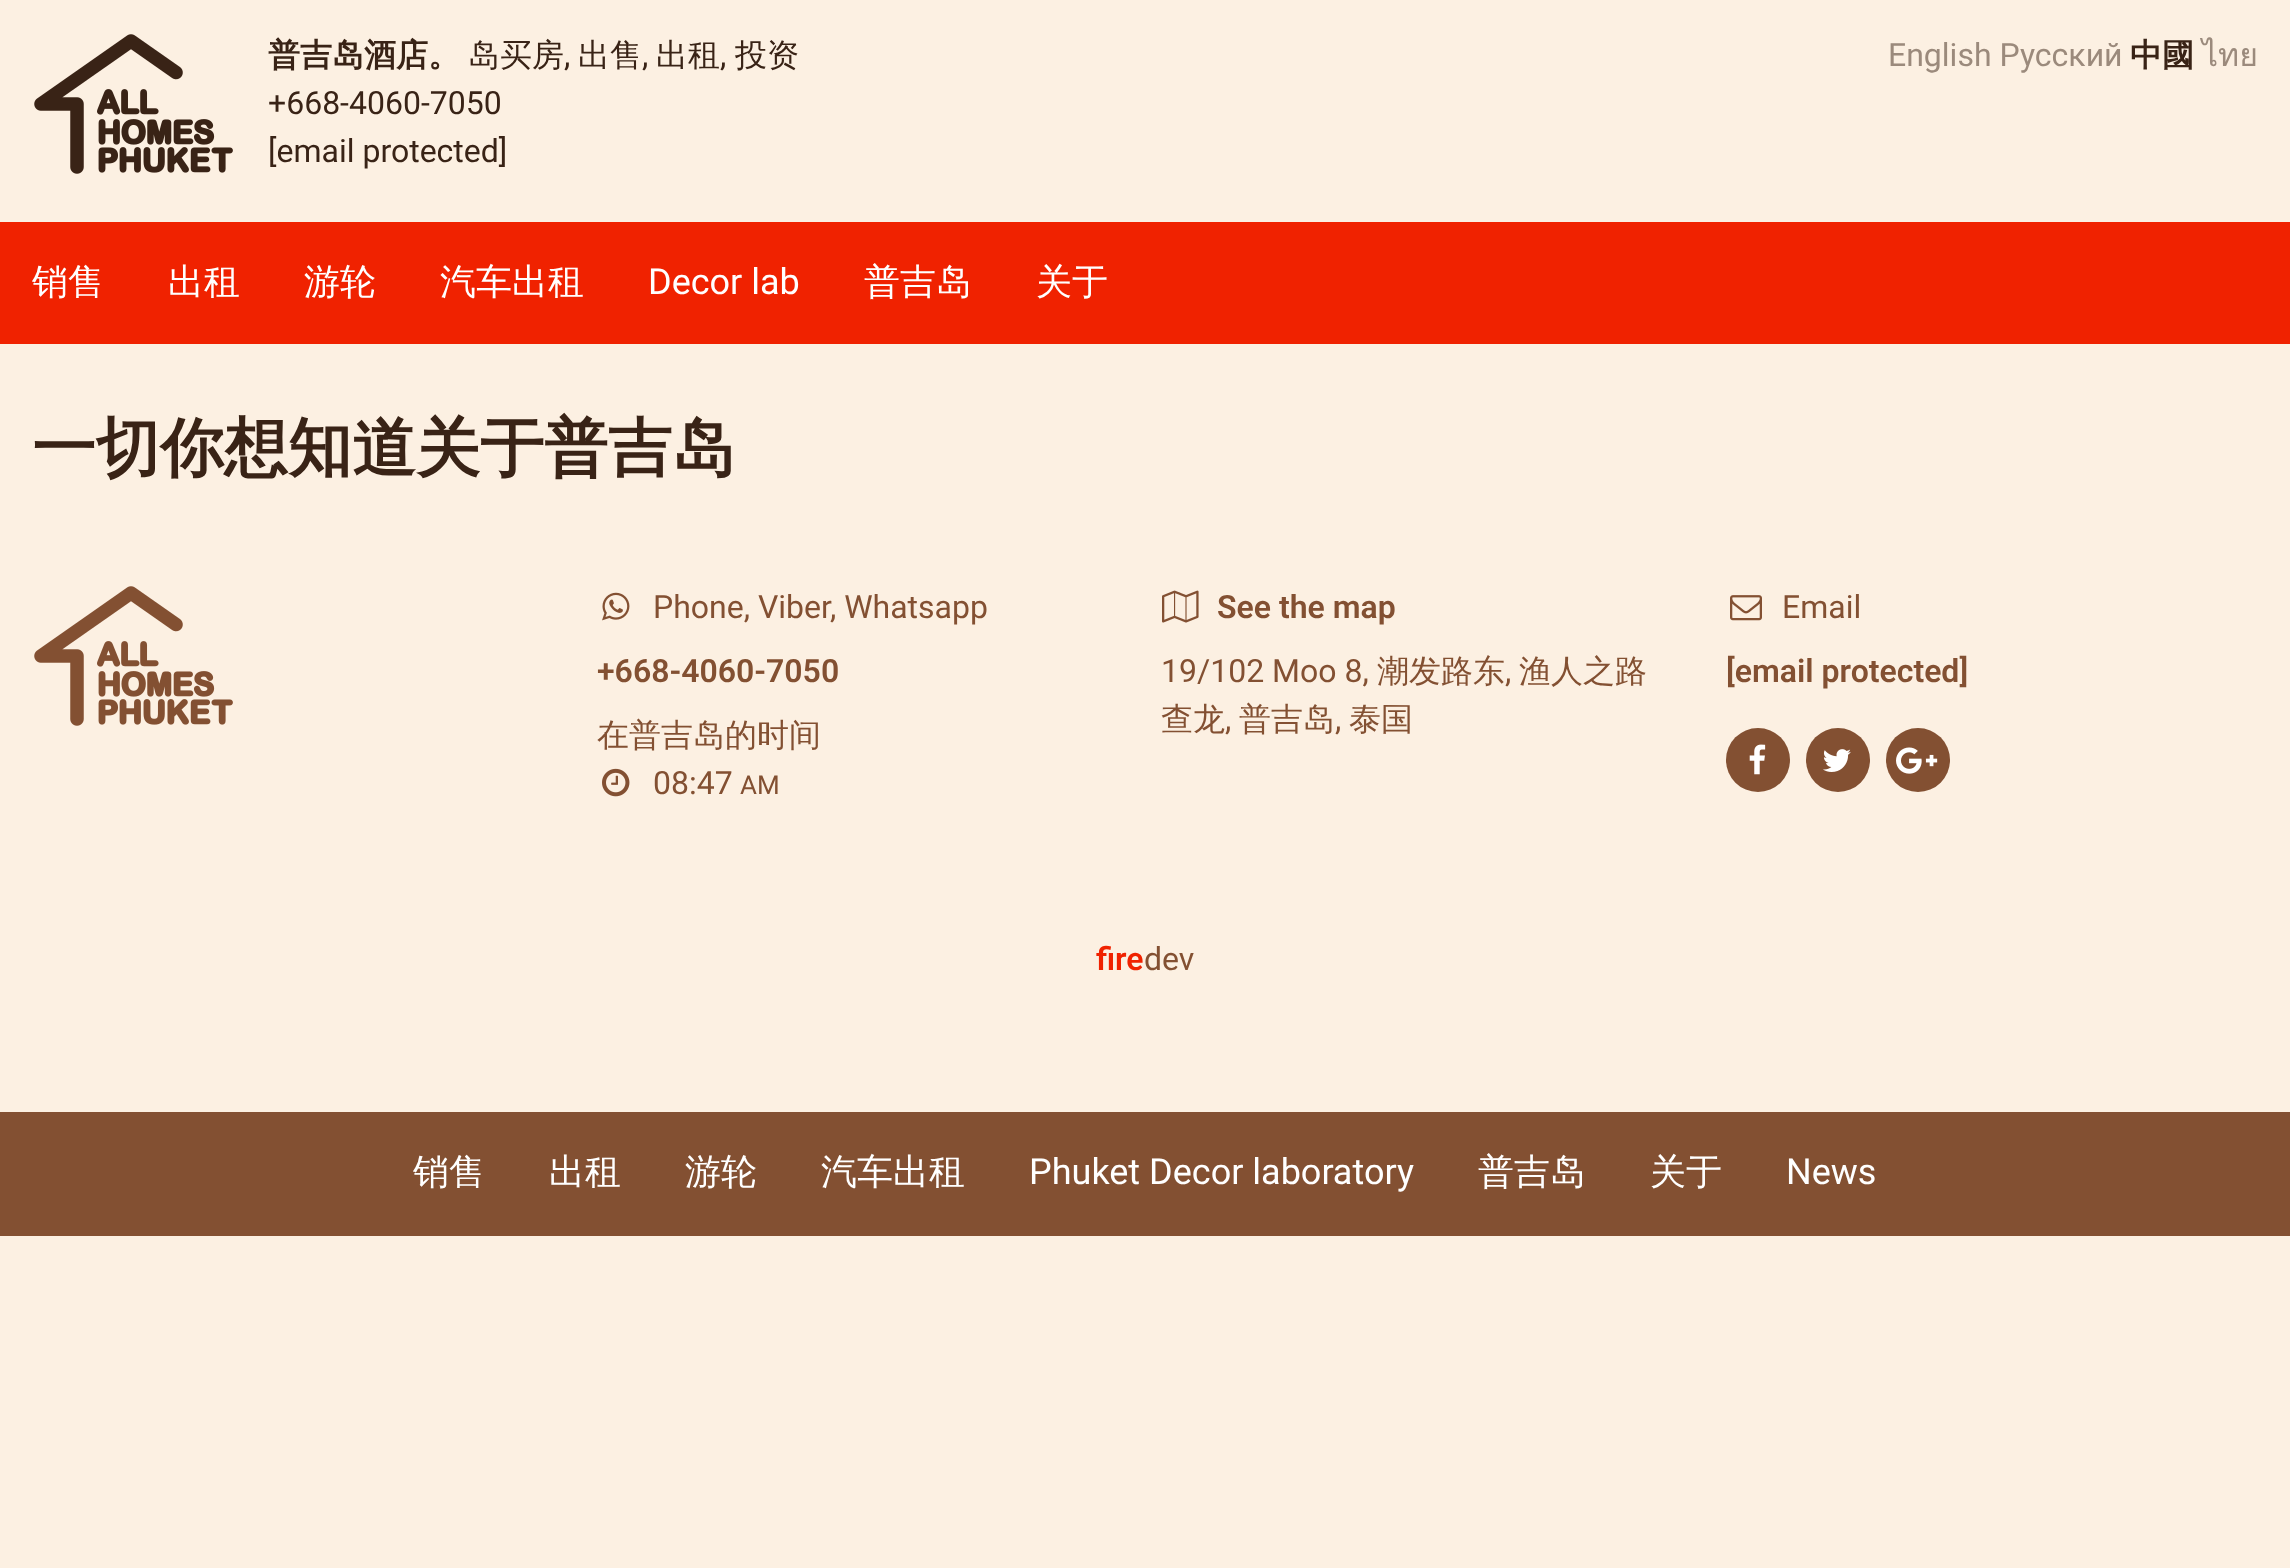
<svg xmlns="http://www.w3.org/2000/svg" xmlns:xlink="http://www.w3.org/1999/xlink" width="2290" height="1568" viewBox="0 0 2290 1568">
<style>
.cls-1{font:bold 32px WenQuanYi Zen Hei;fill:#392316}
.cls-2{font:500 32px WenQuanYi Zen Hei;fill:#392316}
.cls-3{font:32px Roboto;fill:#392316}
.cls-4{font:32px Roboto;fill:#9b8a7c}
.cls-5{font:32px Loma;fill:#9b8a7c}
.cls-6{font:500 36px WenQuanYi Zen Hei;fill:#ffffff}
.cls-7{font:36px Roboto;fill:#ffffff}
.cls-8{font:bold 64px WenQuanYi Zen Hei;fill:#392316}
.cls-9{font:32px Roboto;fill:#835032}
.cls-10{font:600 32px Roboto;fill:#835032}
.cls-11{font:500 32px WenQuanYi Zen Hei;fill:#835032}
.cls-12{font:26px Roboto;fill:#835032}
.cls-13{font:600 32px Roboto;fill:#f02200}
</style>
<rect width="100%" height="100%" fill="#fcf0e2"/>
<image xlink:href="image0.png" x="34" y="34" width="199" height="140"/>
<rect fill="#f02200" x="0" y="222" width="2290" height="122"/>
<image xlink:href="image1.png" x="34" y="586" width="199" height="140"/>
<image xlink:href="image2.png" x="602" y="592" width="28" height="29"/>
<image xlink:href="image3.png" x="602" y="768" width="28" height="29"/>
<image xlink:href="image4.png" x="1162" y="590" width="37" height="33"/>
<image xlink:href="image5.png" x="1730" y="595" width="32" height="26"/>
<circle fill="#835032" cx="1758" cy="760" r="32"/>
<image xlink:href="image6.png" x="1749" y="744" width="17" height="31"/>
<circle fill="#835032" cx="1838" cy="760" r="32"/>
<image xlink:href="image7.png" x="1823" y="749" width="28" height="23"/>
<circle fill="#835032" cx="1918" cy="760" r="32"/>
<image xlink:href="image8.png" x="1896" y="747" width="42" height="27"/>
<rect fill="#835032" x="0" y="1112" width="2290" height="124"/>
<text class="cls-1" x="268" y="66">普吉岛酒店。</text>
<text class="cls-2" x="468" y="66">岛买房</text>
<text class="cls-3" x="564" y="66">,</text>
<text class="cls-2" x="578" y="66">出售</text>
<text class="cls-3" x="642" y="66">,</text>
<text class="cls-2" x="656" y="66">出租</text>
<text class="cls-3" x="720" y="66">,</text>
<text class="cls-2" x="735" y="66">投资</text>
<text class="cls-3"><tspan x="268" y="114">+668-4060-7050</tspan><tspan x="268" y="162">[email protected]</tspan></text>
<text class="cls-4" x="1888" y="66">English Русский</text>
<text class="cls-1" x="2130" y="66">中國</text>
<text class="cls-5" x="2202" y="66">ไทย</text>
<text class="cls-6" x="32" y="294">销售</text>
<text class="cls-6" x="168" y="294">出租</text>
<text class="cls-6" x="304" y="294">游轮</text>
<text class="cls-6" x="440" y="294">汽车出租</text>
<text class="cls-7" x="648" y="294">Decor lab</text>
<text class="cls-6" x="864" y="294">普吉岛</text>
<text class="cls-6" x="1036" y="294">关于</text>
<text class="cls-8" x="32" y="470">一切你想知道关于普吉岛</text>
<text class="cls-9" x="653" y="618">Phone, Viber, Whatsapp</text>
<text class="cls-10" x="597" y="682">+668-4060-7050</text>
<text class="cls-11" x="597" y="746">在普吉岛的时间</text>
<text class="cls-9" x="653" y="794">08:47</text>
<text class="cls-12" x="740" y="794">AM</text>
<text class="cls-10" x="1217" y="618">See the map</text>
<text class="cls-9" x="1161" y="682">19/102 Moo 8,</text>
<text class="cls-11" x="1377" y="682">潮发路东</text>
<text class="cls-9" x="1505" y="682">,</text>
<text class="cls-11" x="1519" y="682">渔人之路</text>
<text class="cls-11" x="1161" y="730">查龙</text>
<text class="cls-9" x="1225" y="730">,</text>
<text class="cls-11" x="1239" y="730">普吉岛</text>
<text class="cls-9" x="1335" y="730">,</text>
<text class="cls-11" x="1349" y="730">泰国</text>
<text class="cls-9" x="1782" y="618">Email</text>
<text class="cls-10" x="1726" y="682">[email protected]</text>
<text class="cls-13" x="1096" y="970">fire</text>
<text class="cls-9" x="1144" y="970">dev</text>
<text class="cls-6" x="413" y="1184">销售</text>
<text class="cls-6" x="549" y="1184">出租</text>
<text class="cls-6" x="685" y="1184">游轮</text>
<text class="cls-6" x="821" y="1184">汽车出租</text>
<text class="cls-7" x="1029" y="1184">Phuket Decor laboratory</text>
<text class="cls-6" x="1478" y="1184">普吉岛</text>
<text class="cls-6" x="1650" y="1184">关于</text>
<text class="cls-7" x="1786" y="1184">News</text>
</svg>
